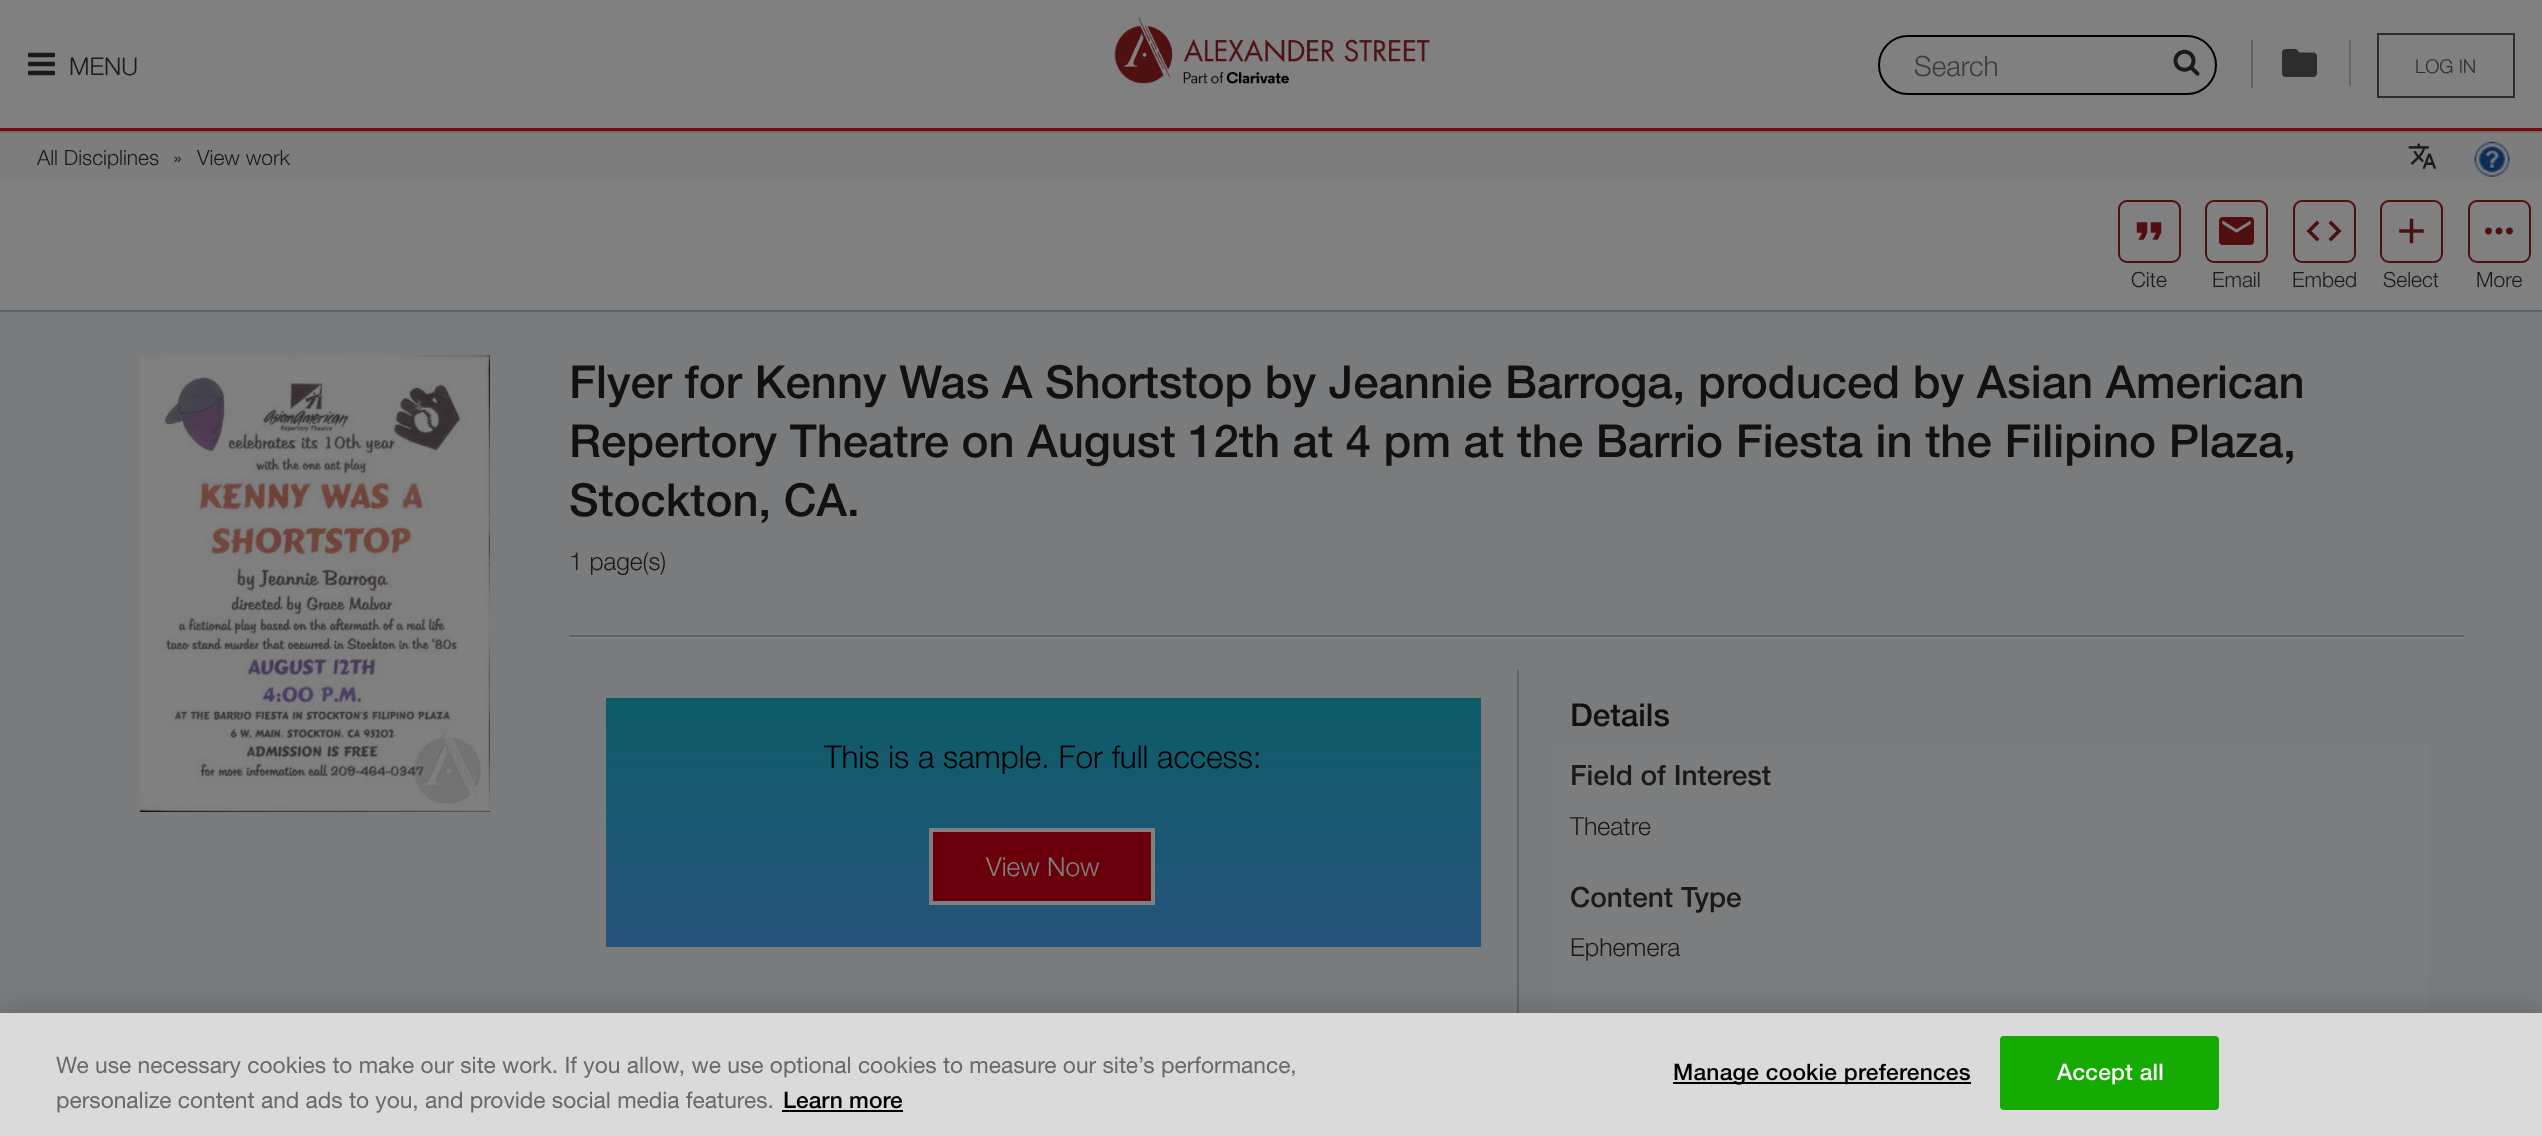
<svg xmlns="http://www.w3.org/2000/svg" xmlns:xlink="http://www.w3.org/1999/xlink" width="2542" height="1136" viewBox="0 0 2542 1136">
<style>
.cls-1{font:300 24.5px 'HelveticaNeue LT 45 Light';fill:#1a1a1a}
.cls-2{font:300 28px 'HelveticaNeue LT 45 Light';fill:#3b3b3b}
.cls-3{font:300 19px 'HelveticaNeue LT 45 Light';fill:#2e2d2d}
.cls-4{font:300 21px 'HelveticaNeue LT 45 Light';fill:#1a1a1a}
.cls-5{font:500 45.5px Helvetica Neue;fill:#111111}
.cls-6{font:300 31.5px 'HelveticaNeue LT 45 Light';fill:#000000}
.cls-7{font:300 26.25px 'HelveticaNeue LT 45 Light';fill:#808080}
.cls-8{font:500 31.5px Helvetica Neue;fill:#111111}
.cls-9{font:500 28px Helvetica Neue;fill:#1a1a1a}
.cls-10{font:300 25px 'HelveticaNeue LT 45 Light';fill:#1a1a1a}
.cls-11{font:22.75px 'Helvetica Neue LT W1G';fill:#696969}
.cls-12{font:500 22.75px Helvetica Neue;fill:#000000}
.cls-13{font:500 22.75px Helvetica Neue;letter-spacing:0.25px;fill:#000000}
.cls-14{font:500 22.75px Helvetica Neue;letter-spacing:0.25px;fill:#ffffff}
</style>
<defs>
<linearGradient id="g1" gradientUnits="userSpaceOnUse" x1="1043" y1="947" x2="1043" y2="698"><stop offset="0" stop-color="#26537b"/><stop offset="1" stop-color="#0d5c68"/></linearGradient>
</defs>
<rect width="100%" height="100%" fill="#808080"/>
<rect fill="#6f0e0b" x="0" y="128" width="2542" height="3"/>
<image xlink:href="image0.png" x="28" y="52" width="27" height="24"/>
<image xlink:href="image1.png" x="1114" y="17" width="316" height="67"/>
<rect fill="none" stroke="#000000" stroke-width="2" x="1879" y="36" width="337" height="58" rx="29"/>
<image xlink:href="image2.png" x="2173" y="49" width="27" height="27"/>
<rect fill="#626262" x="2251" y="40" width="2" height="48"/>
<image xlink:href="image3.png" x="2282" y="49" width="35" height="28"/>
<rect fill="#666666" x="2349" y="40" width="2" height="46"/>
<rect fill="none" stroke="#2e2d2d" stroke-width="2" x="2378" y="34" width="136" height="63"/>
<rect fill="#7d7d7d" x="0" y="133" width="2542" height="49"/>
<rect fill="#6c6c6c" x="0" y="131" width="2542" height="2"/>
<image xlink:href="image4.png" x="2408" y="143" width="28" height="26"/>
<image xlink:href="image5.png" x="2474" y="141" width="36" height="36"/>
<rect fill="none" stroke="#4f0f11" stroke-width="2" x="2119" y="201" width="61" height="61" rx="8"/>
<image xlink:href="image6.png" x="2136" y="222" width="26" height="18"/>
<rect fill="none" stroke="#4f0f11" stroke-width="2" x="2206" y="201" width="61" height="61" rx="8"/>
<image xlink:href="image7.png" x="2219" y="217" width="35" height="28"/>
<rect fill="none" stroke="#4f0f11" stroke-width="2" x="2294" y="201" width="61" height="61" rx="8"/>
<path fill="#4f0f11" d="M2319.5 239L2311.5 231L2319.5 223L2317 220.5L2306.5 231L2317 241.5ZM2328.5 239L2336.5 231L2328.5 223L2331 220.5L2341.5 231L2331 241.5Z"/>
<rect fill="none" stroke="#4f0f11" stroke-width="2" x="2381" y="201" width="61" height="61" rx="8"/>
<image xlink:href="image8.png" x="2399" y="218" width="25" height="26"/>
<rect fill="none" stroke="#4f0f11" stroke-width="2" x="2469" y="201" width="61" height="61" rx="8"/>
<image xlink:href="image9.png" x="2485" y="227" width="28" height="8"/>
<rect fill="#797b7d" x="0" y="312" width="2542" height="701"/>
<rect fill="#59646d" x="0" y="310" width="2542" height="2"/>
<image xlink:href="image10.png" x="140" y="355" width="350" height="457"/>
<rect fill="#59646d" x="569" y="635" width="1895" height="2"/>
<rect fill="#808080" x="569" y="637" width="1895" height="2"/>
<rect fill="url(#g1)" x="606" y="698" width="875" height="249"/>
<rect fill="#6a000c" stroke="#808080" stroke-width="4" x="931" y="830" width="222" height="73"/>
<rect fill="#59646d" x="1517" y="670" width="2" height="343"/>
<rect fill="#7c7d7e" x="1552" y="744" width="875" height="350" rx="4"/>
<rect fill="#000000" fill-opacity="0.2" filter="blur(16px)" x="0" y="1013" width="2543" height="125"/>
<rect fill="#dadada" x="0" y="1013" width="2542" height="123"/>
<rect fill="#000000" x="782" y="1110" width="121" height="2"/>
<rect fill="#000000" x="1673" y="1082" width="298" height="2"/>
<rect fill="#16ab03" stroke="#16ab03" stroke-width="2" x="2001" y="1037" width="217" height="72" rx="3"/>
<text class="cls-1" x="69" y="75">MENU</text>
<text class="cls-2" x="1914" y="76">Search</text>
<text class="cls-3" x="2415" y="73">LOG IN</text>
<text class="cls-4" x="37" y="165">All Disciplines</text>
<text class="cls-4" x="173" y="165">»</text>
<text class="cls-4" x="197" y="165">View work</text>
<text class="cls-4" x="2131" y="287">Cite</text>
<text class="cls-4" x="2212" y="287">Email</text>
<text class="cls-4" x="2292" y="287">Embed</text>
<text class="cls-4" x="2383" y="287">Select</text>
<text class="cls-4" x="2476" y="287">More</text>
<text class="cls-5"><tspan x="569" y="398">Flyer for Kenny Was A Shortstop by Jeannie Barroga, produced by Asian American</tspan><tspan x="569" y="457">Repertory Theatre on August 12th at 4 pm at the Barrio Fiesta in the Filipino Plaza,</tspan><tspan x="569" y="516">Stockton, CA.</tspan></text>
<text class="cls-1" x="569" y="570">1 page(s)</text>
<text class="cls-6" x="824" y="768">This is a sample. For full access:</text>
<text class="cls-7" x="986" y="876">View Now</text>
<text class="cls-8" x="1570" y="726">Details</text>
<text class="cls-9" x="1570" y="785">Field of Interest</text>
<text class="cls-10" x="1570" y="835">Theatre</text>
<text class="cls-9" x="1570" y="907">Content Type</text>
<text class="cls-10" x="1570" y="956">Ephemera</text>
<text class="cls-11"><tspan x="56" y="1073">We use necessary cookies to make our site work. If you allow, we use optional cookies to measure our site’s performance,</tspan><tspan x="56" y="1108">personalize content and ads to you, and provide social media features.</tspan></text>
<text class="cls-12" x="783" y="1108">Learn more</text>
<text class="cls-13" x="1673" y="1080">Manage cookie preferences</text>
<text class="cls-14" x="2057" y="1080">Accept all</text>
</svg>
